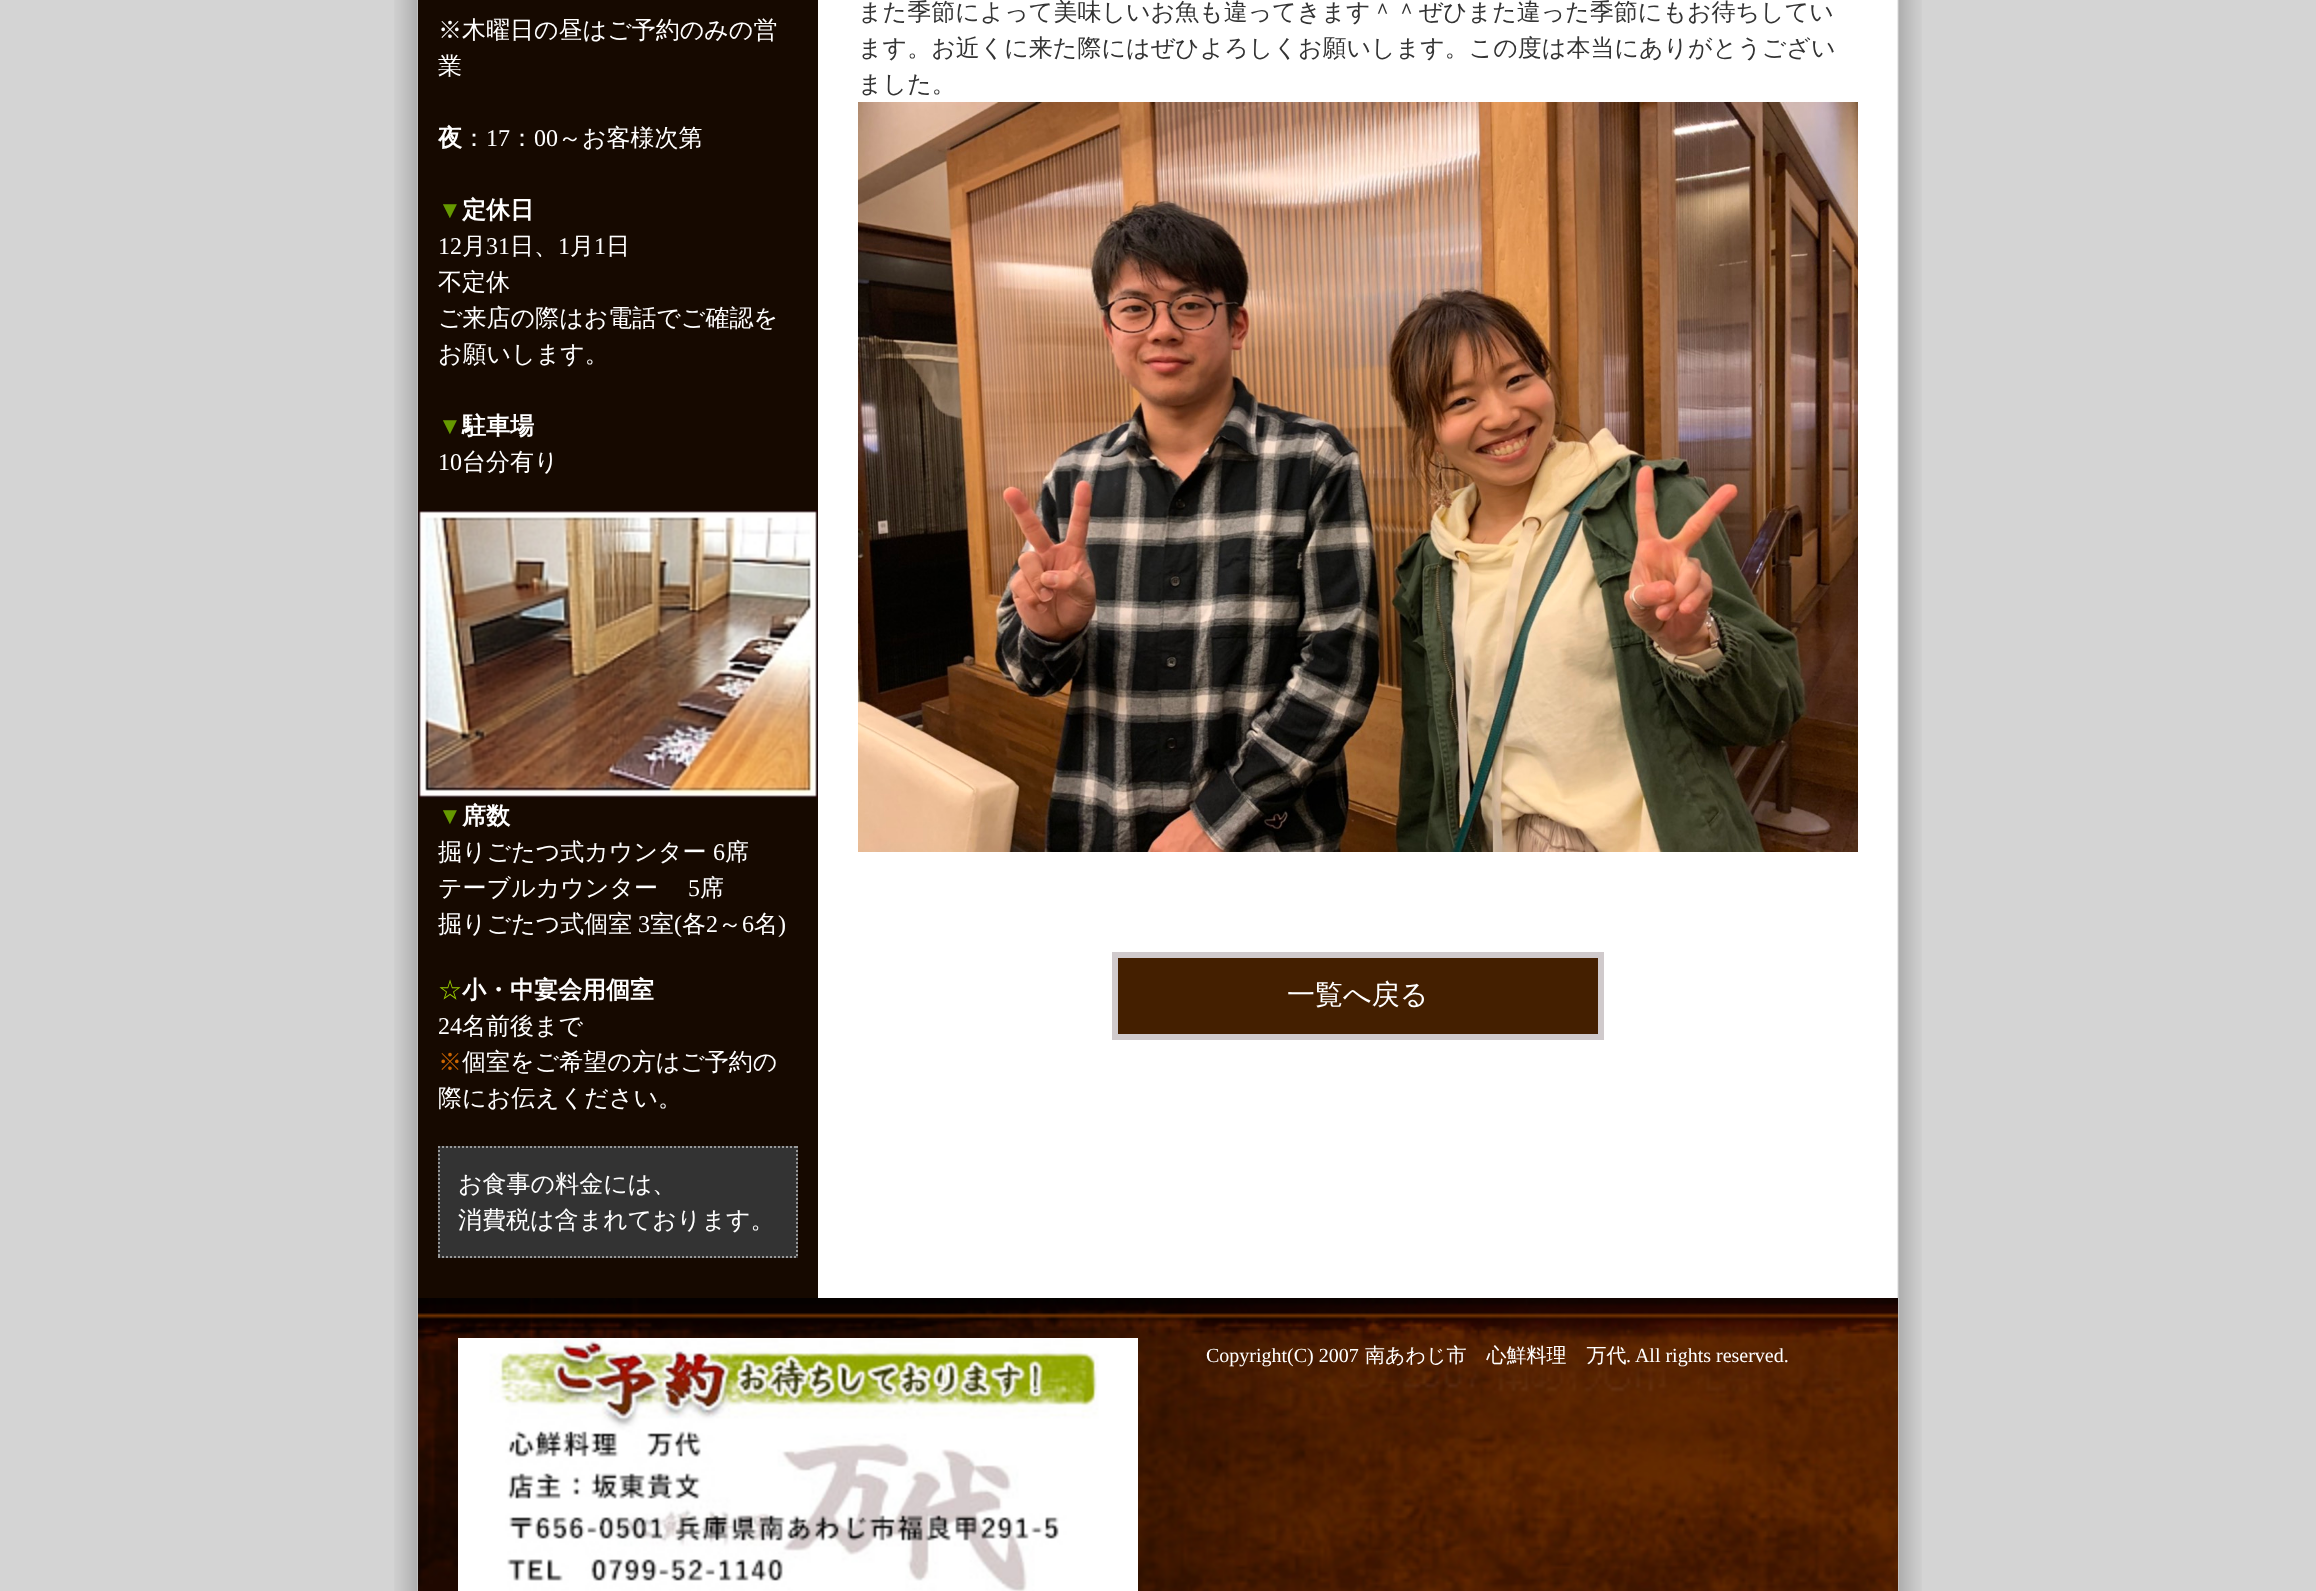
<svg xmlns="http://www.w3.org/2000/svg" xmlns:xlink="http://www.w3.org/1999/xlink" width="2316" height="1591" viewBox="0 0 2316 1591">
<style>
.cls-1{font:500 24px WenQuanYi Zen Hei;fill:#ffffff}
.cls-2{font:bold 24px WenQuanYi Zen Hei;fill:#ffffff}
.cls-3{font:24px Liberation Serif;fill:#ffffff}
.cls-4{font:24px Liberation Serif;fill:#669900}
.cls-5{font:500 24px WenQuanYi Zen Hei;fill:#99cc00}
.cls-6{font:500 24px WenQuanYi Zen Hei;fill:#cc6600}
.cls-7{font:500 24px WenQuanYi Zen Hei;fill:#333333}
.cls-8{font:500 28px WenQuanYi Zen Hei;fill:#ffffff}
.cls-9{font:20px Liberation Serif;fill:#ffffff}
.cls-10{font:500 20px WenQuanYi Zen Hei;fill:#ffffff}
</style>
<rect width="100%" height="100%" fill="#d4d4d4"/>
<image xlink:href="image0.png" x="394" y="0" width="1528" height="1591"/>
<rect fill="#160900" x="418" y="0" width="400" height="1298"/>
<image xlink:href="image1.png" x="418" y="510" width="400" height="288"/>
<rect fill="#333333" x="438" y="1146" width="360" height="112"/>
<path fill="none" stroke="#999999" stroke-width="2" stroke-dasharray="2 2" d="M438 1147H798"/>
<path fill="none" stroke="#999999" stroke-width="2" stroke-dasharray="2 2" d="M797 1146V1258"/>
<path fill="none" stroke="#999999" stroke-width="2" stroke-dasharray="2 2" d="M438 1257H798"/>
<path fill="none" stroke="#999999" stroke-width="2" stroke-dasharray="2 2" d="M439 1146V1258"/>
<image xlink:href="image2.png" x="858" y="102" width="1000" height="750"/>
<rect fill="#441f00" stroke="#d0cacc" stroke-width="6" x="1115" y="955" width="486" height="82"/>
<image xlink:href="image3.png" x="418" y="1298" width="1480" height="293"/>
<image xlink:href="image4.png" x="458" y="1338" width="680" height="253"/>
<text class="cls-1"><tspan x="438" y="38">※木曜日の昼はご予約のみの営</tspan><tspan x="438" y="74">業</tspan></text>
<text class="cls-2" x="438" y="146">夜</text>
<text class="cls-1" x="462" y="146">：</text>
<text class="cls-3" x="486" y="146">17</text>
<text class="cls-1" x="510" y="146">：</text>
<text class="cls-3" x="534" y="146">00</text>
<text class="cls-1" x="558" y="146">～お客様次第</text>
<text class="cls-4" x="438" y="218">▼</text>
<text class="cls-2" x="462" y="218">定休日</text>
<text class="cls-3" x="438" y="254">12</text>
<text class="cls-1" x="462" y="254">月</text>
<text class="cls-3" x="486" y="254">31</text>
<text class="cls-1" x="510" y="254">日、</text>
<text class="cls-3" x="558" y="254">1</text>
<text class="cls-1" x="570" y="254">月</text>
<text class="cls-3" x="594" y="254">1</text>
<text class="cls-1" x="606" y="254">日</text>
<text class="cls-1"><tspan x="438" y="290">不定休</tspan><tspan x="438" y="326">ご来店の際はお電話でご確認を</tspan><tspan x="438" y="362">お願いします。</tspan></text>
<text class="cls-4" x="438" y="434">▼</text>
<text class="cls-2" x="462" y="434">駐車場</text>
<text class="cls-3" x="438" y="470">10</text>
<text class="cls-1" x="462" y="470">台分有り</text>
<text class="cls-4" x="438" y="824">▼</text>
<text class="cls-2" x="462" y="824">席数</text>
<text class="cls-1" x="438" y="860">掘りごたつ式カウンター</text>
<text class="cls-3" x="713" y="860">6</text>
<text class="cls-1" x="725" y="860">席</text>
<text class="cls-1" x="438" y="896">テーブルカウンター</text>
<text class="cls-3" x="688" y="896">5</text>
<text class="cls-1" x="700" y="896">席</text>
<text class="cls-1" x="438" y="932">掘りごたつ式個室</text>
<text class="cls-3" x="638" y="932">3</text>
<text class="cls-1" x="650" y="932">室</text>
<text class="cls-3" x="674" y="932">(</text>
<text class="cls-1" x="682" y="932">各</text>
<text class="cls-3" x="706" y="932">2</text>
<text class="cls-1" x="718" y="932">～</text>
<text class="cls-3" x="742" y="932">6</text>
<text class="cls-1" x="754" y="932">名</text>
<text class="cls-3" x="778" y="932">)</text>
<text class="cls-5" x="438" y="998">☆</text>
<text class="cls-2" x="462" y="998">小・中宴会用個室</text>
<text class="cls-3" x="438" y="1034">24</text>
<text class="cls-1" x="462" y="1034">名前後まで</text>
<text class="cls-6" x="438" y="1070">※</text>
<text class="cls-1" x="462" y="1070">個室をご希望の方はご予約の</text>
<text class="cls-1" x="438" y="1106">際にお伝えください。</text>
<text class="cls-1"><tspan x="458" y="1192">お食事の料金には、</tspan><tspan x="458" y="1228">消費税は含まれております。</tspan></text>
<text class="cls-7"><tspan x="858" y="20">また季節によって美味しいお魚も違ってきます＾＾ぜひまた違った季節にもお待ちしてい</tspan><tspan x="858" y="56">ます。お近くに来た際にはぜひよろしくお願いします。この度は本当にありがとうござい</tspan><tspan x="858" y="92">ました。</tspan></text>
<text class="cls-8" x="1287" y="1004">一覧へ戻る</text>
<text class="cls-9" x="1206" y="1362">Copyright(C) 2007</text>
<text class="cls-10" x="1365" y="1362">南あわじ市　心鮮料理　万代</text>
<text class="cls-9" x="1626" y="1362">. All rights reserved.</text>
</svg>
